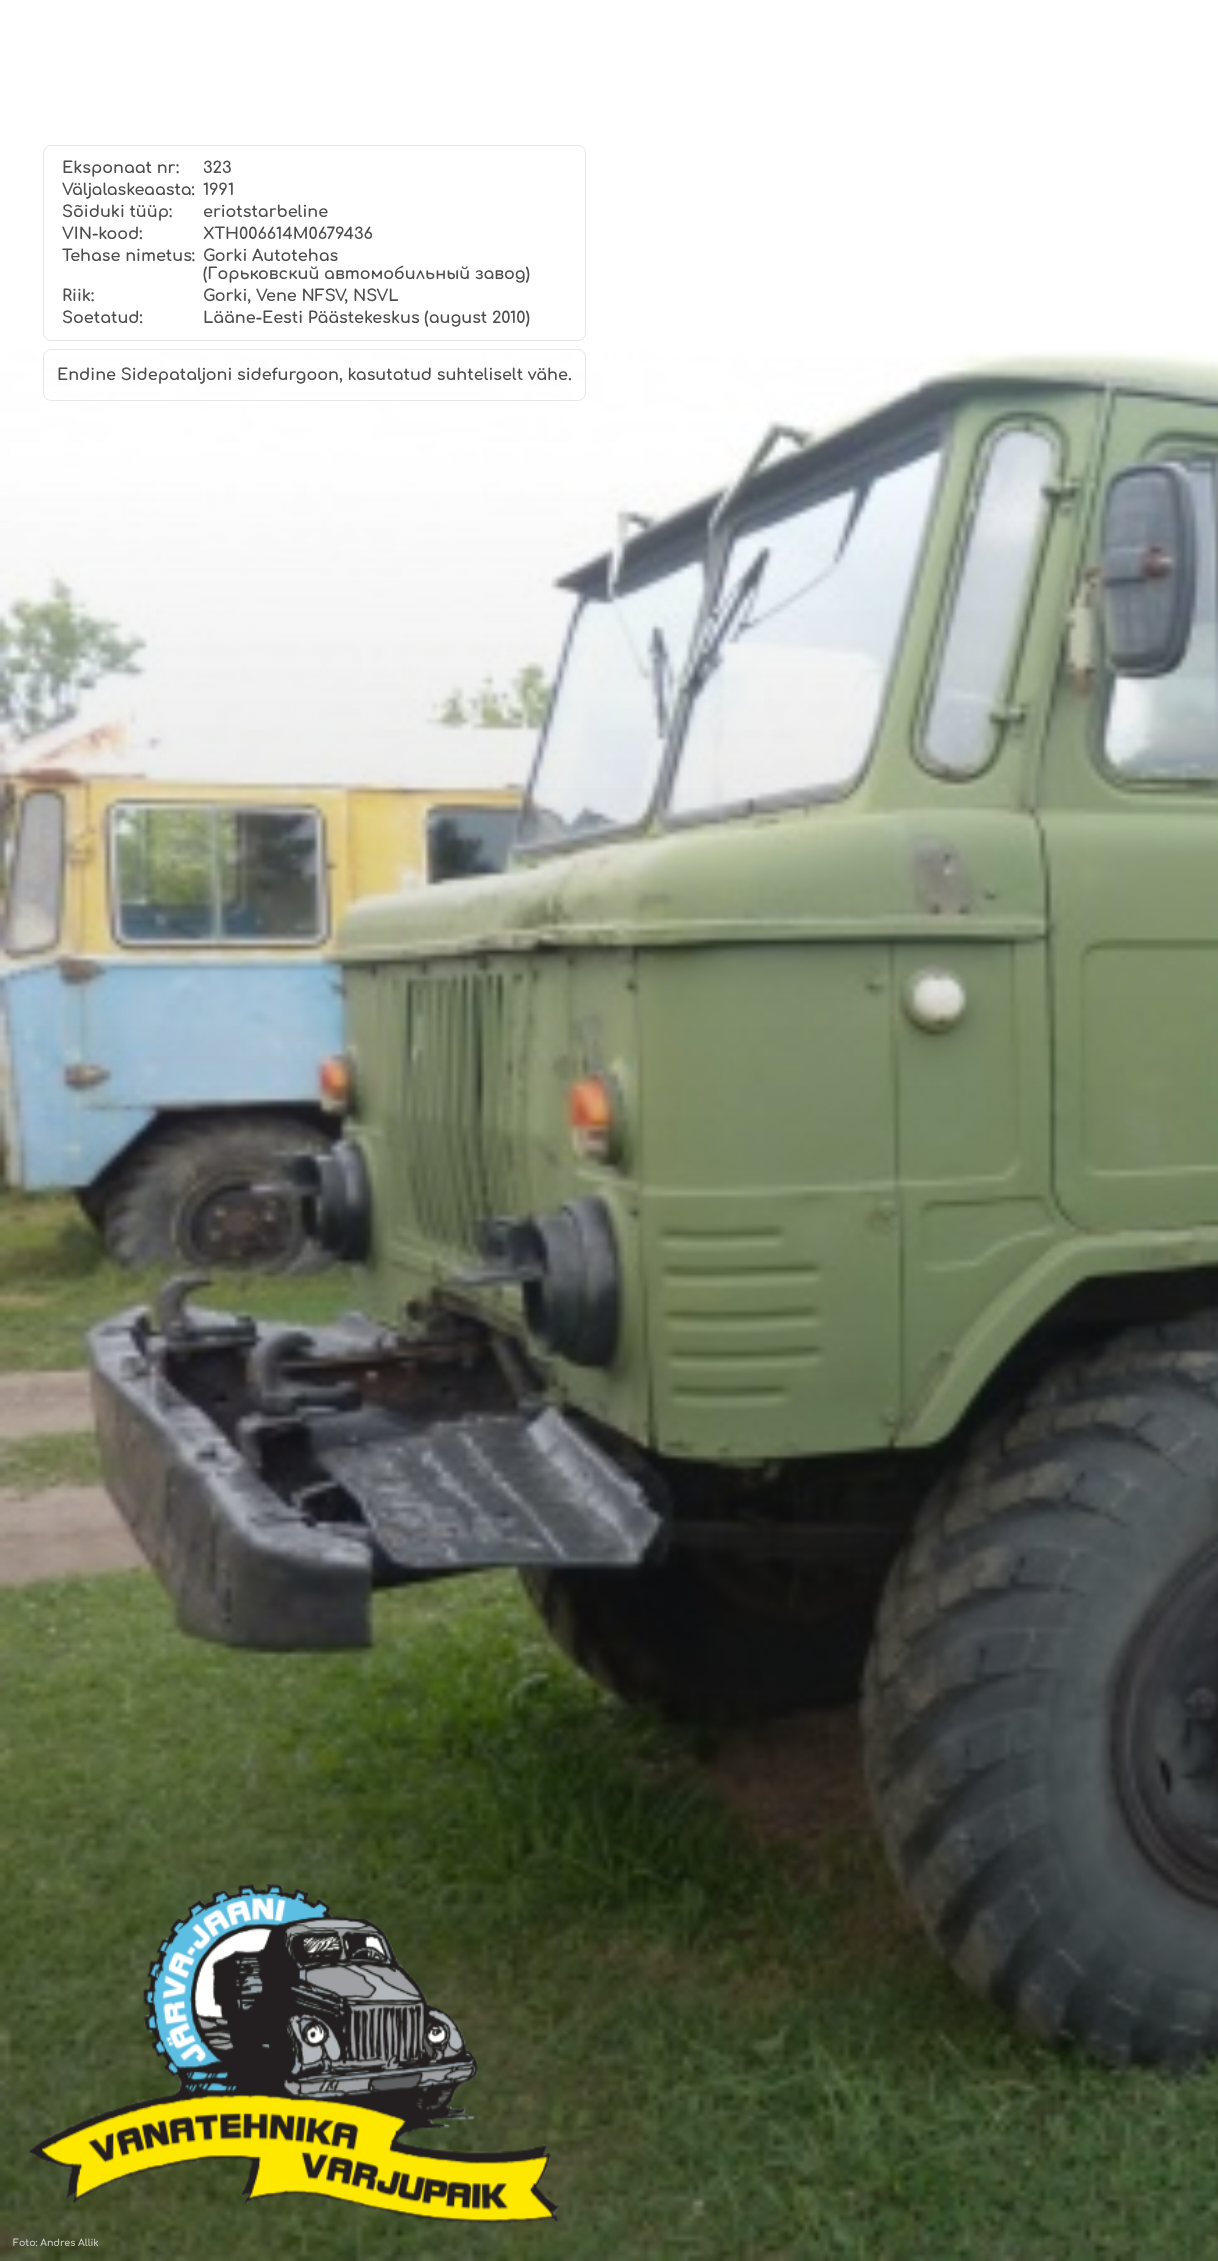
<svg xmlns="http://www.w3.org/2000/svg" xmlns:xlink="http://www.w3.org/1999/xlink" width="1218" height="2261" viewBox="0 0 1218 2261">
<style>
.cls-1{font:bold 16px Comfortaa;fill:#4d4d4d}
.cls-2{font:bold 9.5px Comfortaa;fill:#c9c9c9}
</style>
<rect width="100%" height="100%" fill="#ffffff"/>
<image xlink:href="image0.png" x="0" y="350" width="1218" height="1911"/>
<rect fill="none" stroke="#e7e7e7" x="43.5" y="145.5" width="542" height="195" rx="7.5"/>
<rect fill="none" stroke="#e7e7e7" x="43.5" y="349.5" width="542" height="51" rx="7.5"/>
<image xlink:href="image1.png" x="28" y="1884" width="531" height="340"/>
<text class="cls-1" x="62" y="173">Eksponaat nr:</text>
<text class="cls-1" x="203" y="173">323</text>
<text class="cls-1" x="62" y="195">Väljalaskeaasta:</text>
<text class="cls-1" x="203" y="195">1991</text>
<text class="cls-1" x="62" y="217">Sõiduki tüüp:</text>
<text class="cls-1" x="203" y="217">eriotstarbeline</text>
<text class="cls-1" x="62" y="239">VIN-kood:</text>
<text class="cls-1" x="203" y="239">XTH006614M0679436</text>
<text class="cls-1" x="62" y="261">Tehase nimetus:</text>
<text class="cls-1"><tspan x="203" y="261">Gorki Autotehas</tspan><tspan x="203" y="279">(Горьковский автомобильный завод)</tspan></text>
<text class="cls-1" x="62" y="301">Riik:</text>
<text class="cls-1" x="203" y="301">Gorki, Vene NFSV, NSVL</text>
<text class="cls-1" x="62" y="323">Soetatud:</text>
<text class="cls-1" x="203" y="323">Lääne-Eesti Päästekeskus (august 2010)</text>
<text class="cls-1" x="57" y="380">Endine Sidepataljoni sidefurgoon, kasutatud suhteliselt vähe.</text>
<text class="cls-2" x="13" y="2246">Foto: Andres Allik</text>
</svg>
